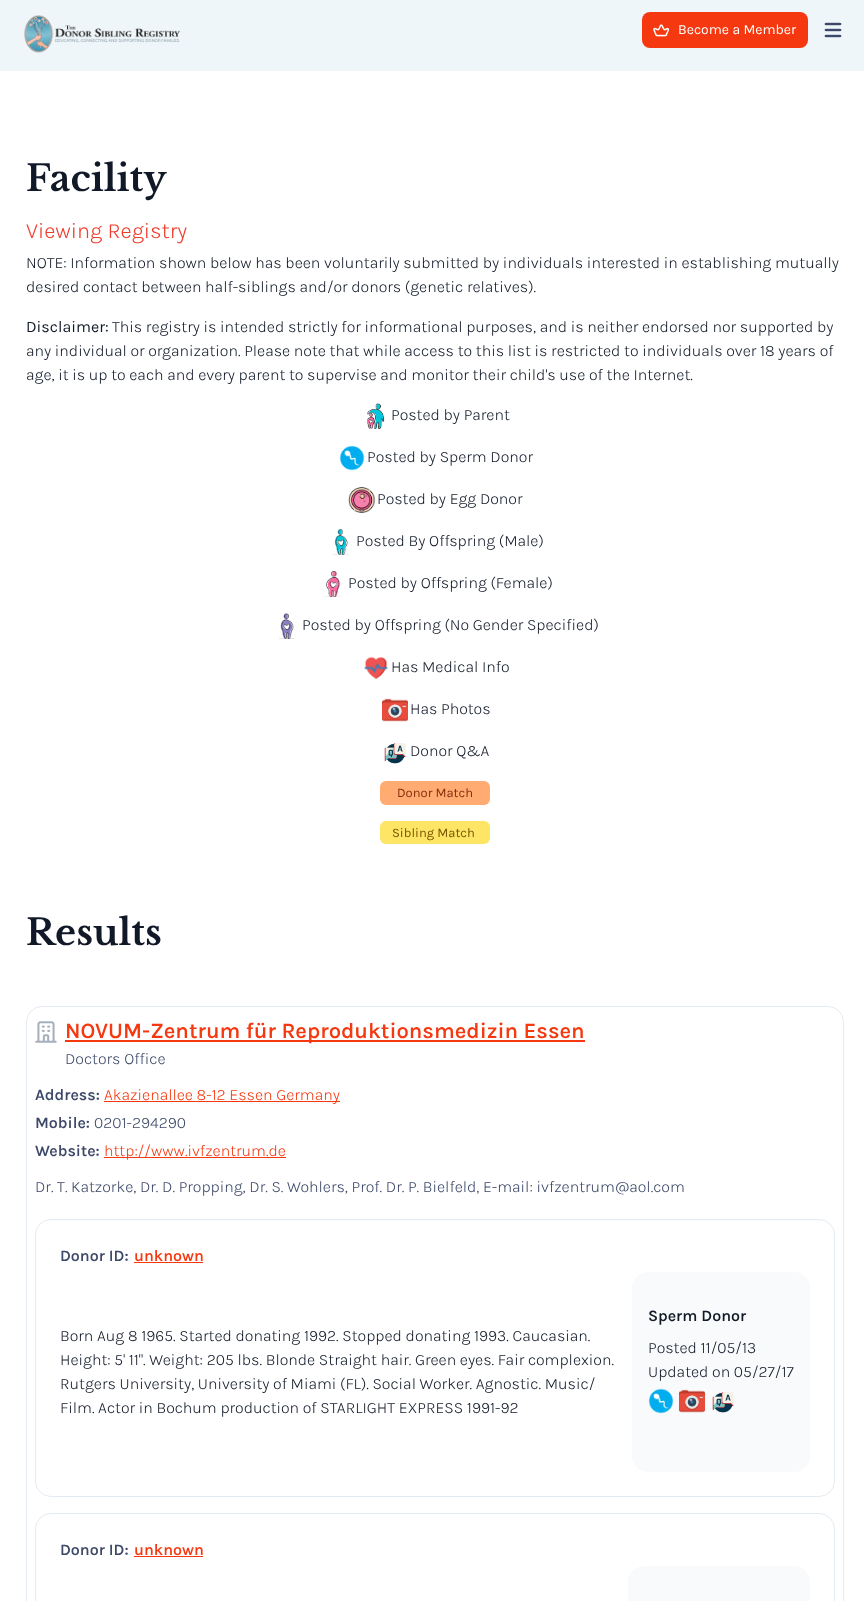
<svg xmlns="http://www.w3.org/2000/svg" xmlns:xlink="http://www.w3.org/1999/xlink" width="864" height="1601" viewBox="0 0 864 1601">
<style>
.cls-1{font:14px Karla;fill:#ffffff}
.cls-2{font:bold 36px Libre Baskerville;fill:#111928}
.cls-3{font:300 22px Karla;fill:#ef3d2d}
.cls-4{font:300 16px Karla;fill:#111928}
.cls-5{font:16px Karla;fill:#111928}
.cls-6{font:13px Karla;fill:#8a2c0d}
.cls-7{font:13px Karla;fill:#785600}
.cls-8{font:600 22px Karla;fill:#f5380f}
.cls-9{font:300 16px Karla;fill:#3c4867}
.cls-10{font:600 16px Karla;fill:#3c4867}
.cls-11{font:300 16px Karla;fill:#f5380f}
.cls-12{font:600 16px Karla;fill:#f5380f}
.cls-13{font:600 16px Karla;fill:#111928}
</style>
<rect width="100%" height="100%" fill="#ffffff"/>
<rect fill="#eff6fa" x="0" y="0" width="864" height="71"/>
<image xlink:href="image0.png" x="24" y="15" width="157" height="38"/>
<rect fill="#f5380f" x="642" y="12" width="166" height="36" rx="8"/>
<image xlink:href="image1.png" x="653" y="24" width="17" height="13"/>
<image xlink:href="image2.png" x="824" y="22" width="18" height="16"/>
<image xlink:href="image3.png" x="366" y="403" width="19" height="26"/>
<image xlink:href="image4.png" x="339" y="445" width="26" height="26"/>
<image xlink:href="image5.png" x="348" y="487" width="28" height="26"/>
<image xlink:href="image6.png" x="333" y="529" width="16" height="26"/>
<image xlink:href="image7.png" x="324" y="571" width="17" height="26"/>
<image xlink:href="image8.png" x="279" y="613" width="15" height="26"/>
<image xlink:href="image9.png" x="364" y="656" width="24" height="24"/>
<image xlink:href="image10.png" x="382" y="698" width="26" height="24"/>
<image xlink:href="image11.png" x="384" y="743" width="22" height="21"/>
<rect fill="#ffab71" x="380" y="781" width="110" height="24" rx="6"/>
<rect fill="#fee565" x="380" y="821" width="110" height="23" rx="6"/>
<rect fill="none" stroke="#e4ebf3" x="26.5" y="1006.5" width="817" height="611" rx="15.5"/>
<image xlink:href="image12.png" x="35" y="1021" width="22" height="22"/>
<rect fill="#f5380f" x="65" y="1040" width="520" height="2"/>
<rect fill="#f5380f" x="104" y="1101" width="236" height="1"/>
<rect fill="#f5380f" x="104" y="1157" width="182" height="1"/>
<rect fill="none" stroke="#e4ebf3" x="35.5" y="1219.5" width="799" height="277" rx="15.5"/>
<rect fill="#f5380f" x="134" y="1262" width="69" height="1"/>
<rect fill="#f9fafb" x="632" y="1272" width="178" height="200" rx="16"/>
<image xlink:href="image13.png" x="648" y="1388" width="26" height="26"/>
<image xlink:href="image14.png" x="679" y="1389" width="26" height="24"/>
<image xlink:href="image15.png" x="712" y="1392" width="22" height="21"/>
<rect fill="none" stroke="#e4ebf3" x="35.5" y="1513.5" width="799" height="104" rx="15.5"/>
<rect fill="#f5380f" x="134" y="1556" width="69" height="1"/>
<rect fill="#f9fafb" x="628" y="1566" width="182" height="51" rx="16"/>
<text class="cls-1" x="678" y="34">Become a Member</text>
<text class="cls-2" x="26" y="191">Facility</text>
<text class="cls-3" x="26" y="238">Viewing Registry</text>
<text class="cls-4"><tspan x="26" y="268">NOTE: Information shown below has been voluntarily submitted by individuals interested in establishing mutually</tspan><tspan x="26" y="292">desired contact between half-siblings and/or donors (genetic relatives).</tspan></text>
<text class="cls-5" x="26" y="332">Disclaimer:</text>
<text class="cls-4" x="112" y="332">This registry is intended strictly for informational purposes, and is neither endorsed nor supported by</text>
<text class="cls-4"><tspan x="26" y="356">any individual or organization. Please note that while access to this list is restricted to individuals over 18 years of</tspan><tspan x="26" y="380">age, it is up to each and every parent to supervise and monitor their child's use of the Internet.</tspan></text>
<text class="cls-4" x="391" y="420">Posted by Parent</text>
<text class="cls-4" x="367" y="462">Posted by Sperm Donor</text>
<text class="cls-4" x="377" y="504">Posted by Egg Donor</text>
<text class="cls-4" x="356" y="546">Posted By Offspring (Male)</text>
<text class="cls-4" x="348" y="588">Posted by Offspring (Female)</text>
<text class="cls-4" x="302" y="630">Posted by Offspring (No Gender Specified)</text>
<text class="cls-4" x="391" y="672">Has Medical Info</text>
<text class="cls-4" x="410" y="714">Has Photos</text>
<text class="cls-4" x="410" y="756">Donor Q&amp;A</text>
<text class="cls-6" x="397" y="797">Donor Match</text>
<text class="cls-7" x="392" y="837">Sibling Match</text>
<text class="cls-2" x="26" y="945">Results</text>
<text class="cls-8" x="65" y="1038">NOVUM-Zentrum für Reproduktionsmedizin Essen</text>
<text class="cls-9" x="65" y="1064">Doctors Office</text>
<text class="cls-10" x="35" y="1100">Address:</text>
<text class="cls-11" x="104" y="1100">Akazienallee 8-12 Essen Germany</text>
<text class="cls-10" x="35" y="1128">Mobile:</text>
<text class="cls-9" x="94" y="1128">0201-294290</text>
<text class="cls-10" x="35" y="1156">Website:</text>
<text class="cls-11" x="104" y="1156">http://www.ivfzentrum.de</text>
<text class="cls-9" x="35" y="1192">Dr. T. Katzorke, Dr. D. Propping, Dr. S. Wohlers, Prof. Dr. P. Bielfeld, E-mail: ivfzentrum@aol.com</text>
<text class="cls-10" x="60" y="1261">Donor ID:</text>
<text class="cls-12" x="134" y="1261">unknown</text>
<text class="cls-4"><tspan x="60" y="1341">Born Aug 8 1965. Started donating 1992. Stopped donating 1993. Caucasian.</tspan><tspan x="60" y="1365">Height: 5' 11". Weight: 205 lbs. Blonde Straight hair. Green eyes. Fair complexion.</tspan><tspan x="60" y="1389">Rutgers University, University of Miami (FL). Social Worker. Agnostic. Music/</tspan><tspan x="60" y="1413">Film. Actor in Bochum production of STARLIGHT EXPRESS 1991-92</tspan></text>
<text class="cls-13" x="648" y="1321">Sperm Donor</text>
<text class="cls-4"><tspan x="648" y="1353">Posted 11/05/13</tspan><tspan x="648" y="1377">Updated on 05/27/17</tspan></text>
<text class="cls-10" x="60" y="1555">Donor ID:</text>
<text class="cls-12" x="134" y="1555">unknown</text>
</svg>
